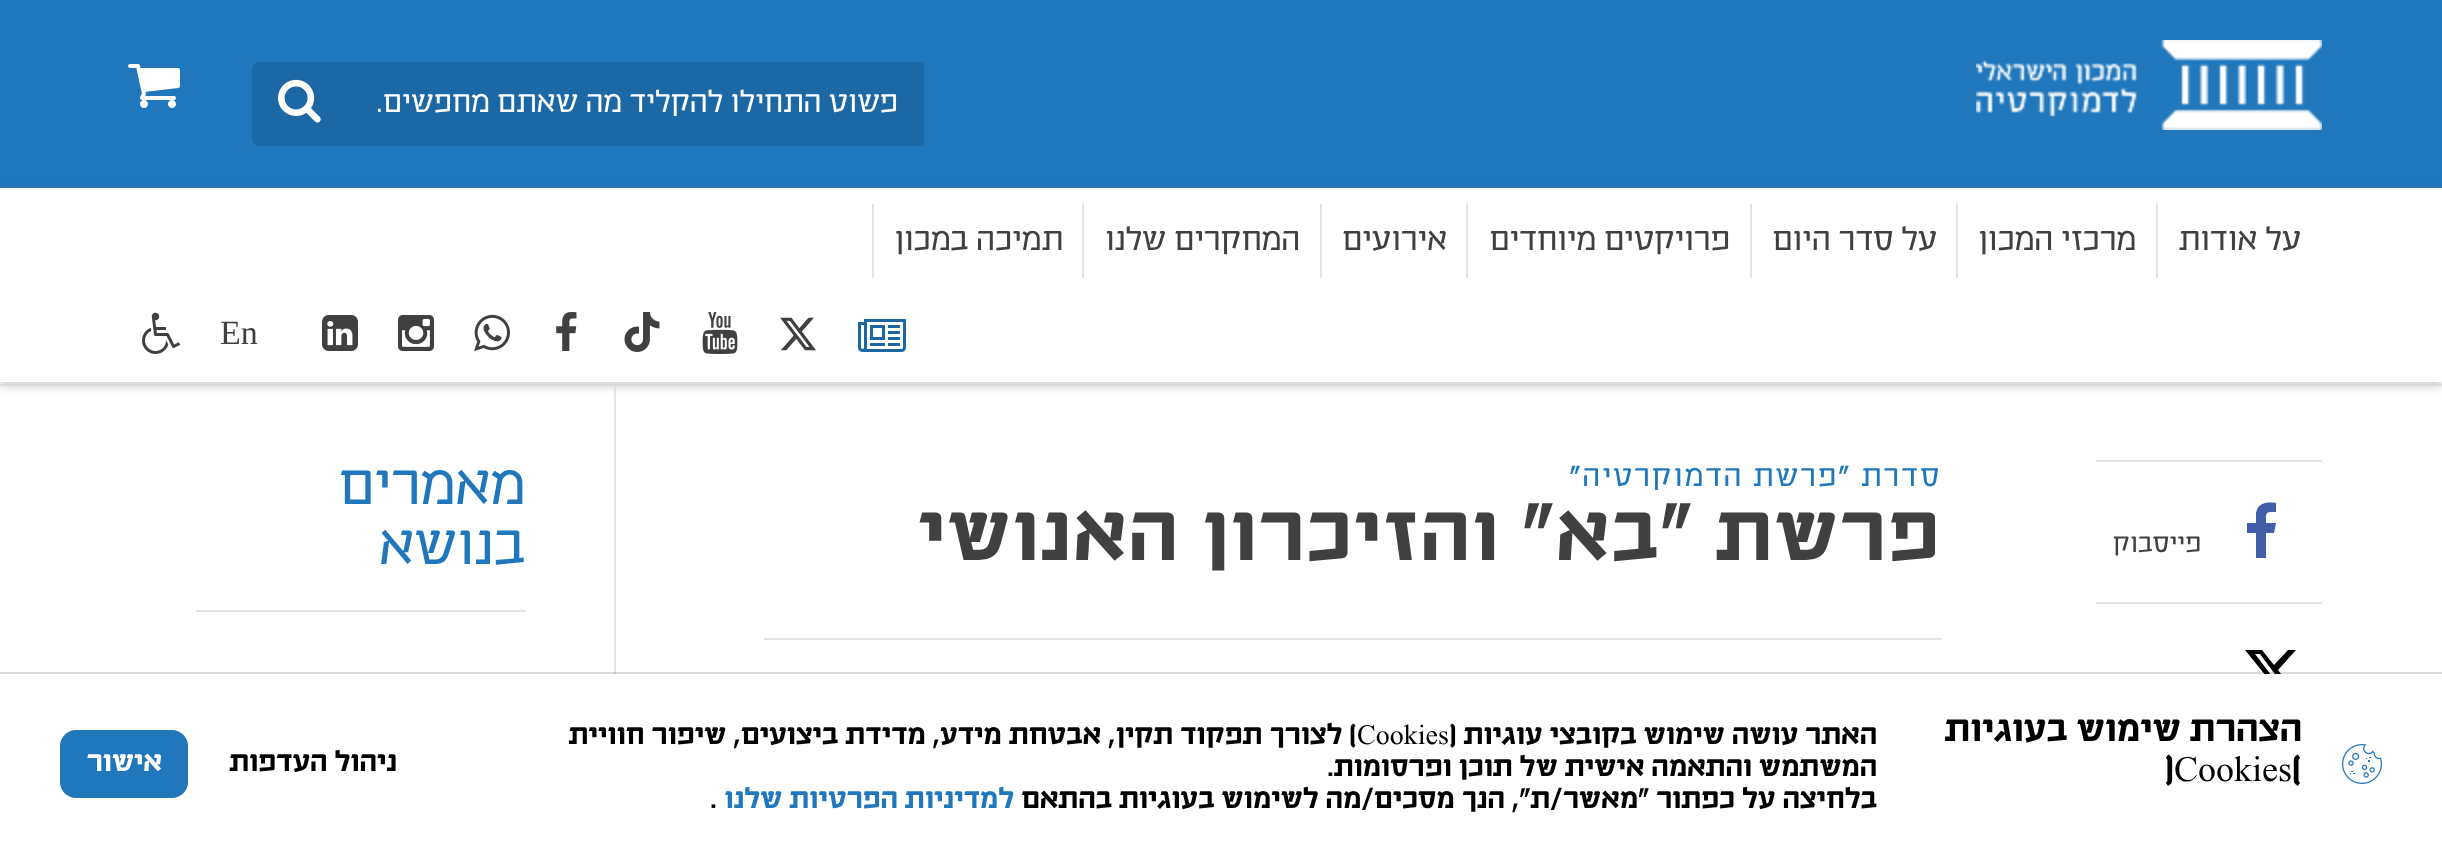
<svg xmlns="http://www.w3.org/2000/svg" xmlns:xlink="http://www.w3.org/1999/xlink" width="2442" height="852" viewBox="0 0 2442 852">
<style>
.cls-1{font:200 32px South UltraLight;direction:rtl;fill:#ffffff}
.cls-2{font:200 34px South UltraLight;direction:rtl;fill:#404041}
.cls-3{font:34px Liberation Serif;fill:#404041}
.cls-4{font:200 28px South UltraLight;direction:rtl;fill:#404041}
.cls-5{font:200 32px South UltraLight;letter-spacing:2px;direction:rtl;fill:#2077bc}
.cls-6{font:80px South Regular;letter-spacing:2px;direction:rtl;fill:#404041}
.cls-7{font:200 60px South UltraLight;direction:rtl;fill:#2077bc}
.cls-8{font:36px South Regular;direction:rtl;fill:#000000}
.cls-9{font:36px South Regular;fill:#000000}
.cls-10{font:28px South Regular;direction:rtl;fill:#000000}
.cls-11{font:28px South Regular;fill:#000000}
.cls-12{font:28px South Regular;direction:rtl;fill:#2077bc}
.cls-13{font:28px South Regular;direction:rtl;fill:#ffffff}
</style>
<defs>
<clipPath id="clip1"><rect x="378" y="84" width="520" height="40"/></clipPath>
</defs>
<rect width="100%" height="100%" fill="#ffffff"/>
<rect fill="#2077bc" x="0" y="0" width="2442" height="188"/>
<image xlink:href="image0.png" x="1976" y="40" width="346" height="90"/>
<rect fill="#1c68a5" x="346" y="62" width="578" height="84"/>
<path fill="#1c68a5" stroke="#1c68a5" stroke-width="2" d="M260 63H345V145H260C256 145 253 142 253 138V70C253 66 256 63 260 63Z"/>
<image xlink:href="image1.png" x="278" y="79" width="43" height="44"/>
<image xlink:href="image2.png" x="128" y="64" width="52" height="44"/>
<rect fill="#000000" fill-opacity="0.1" filter="blur(4px)" x="0" y="294" width="2442" height="94"/>
<rect fill="#e4e4e5" x="0" y="384" width="2442" height="2"/>
<rect fill="#e5e5e5" x="614" y="386" width="2" height="288"/>
<rect fill="#000000" fill-opacity="0.1" filter="blur(4px)" x="0" y="190" width="2442" height="194"/>
<rect fill="#ffffff" x="0" y="188" width="2442" height="194"/>
<rect fill="#e4e4e5" x="2156" y="204" width="2" height="74"/>
<rect fill="#e4e4e5" x="1956" y="204" width="2" height="74"/>
<rect fill="#e4e4e5" x="1750" y="204" width="2" height="74"/>
<rect fill="#e4e4e5" x="1466" y="204" width="2" height="74"/>
<rect fill="#e4e4e5" x="1320" y="204" width="2" height="74"/>
<rect fill="#e4e4e5" x="1082" y="204" width="2" height="74"/>
<rect fill="#e4e4e5" x="872" y="204" width="2" height="74"/>
<image xlink:href="image3.png" x="858" y="319" width="48" height="33"/>
<image xlink:href="image4.png" x="780" y="317" width="36" height="34"/>
<image xlink:href="image5.png" x="702" y="312" width="36" height="42"/>
<image xlink:href="image6.png" x="624" y="312" width="36" height="40"/>
<image xlink:href="image7.png" x="556" y="312" width="21" height="39"/>
<image xlink:href="image8.png" x="474" y="314" width="36" height="38"/>
<image xlink:href="image9.png" x="398" y="315" width="36" height="36"/>
<image xlink:href="image10.png" x="322" y="315" width="36" height="36"/>
<image xlink:href="image11.png" x="142" y="312" width="39" height="42"/>
<rect fill="#e5e5e5" x="2096" y="460" width="226" height="2"/>
<path fill="#425daa" d="M2276 503V512C2265 512 2266 512 2266 523H2276L2274 533H2266V558H2256V533H2247V523H2256V513C2258 502 2268 502 2276 503Z"/>
<rect fill="#e5e5e5" x="2096" y="602" width="226" height="2"/>
<path fill="#000000" d="M2288 650H2296L2278 670L2299 698H2282L2269 681L2254 698H2246L2266 676L2245 650H2262L2274 665ZM2285 693H2289L2260 654H2255Z"/>
<rect fill="#e5e5e5" x="764" y="638" width="1178" height="2"/>
<rect fill="#e5e5e5" x="196" y="610" width="330" height="2"/>
<rect fill="#000000" fill-opacity="0.15" x="0" y="672" width="2442" height="2"/>
<rect fill="#ffffff" x="2246" y="674" width="53" height="24"/>
<image xlink:href="image12.png" x="2342" y="744" width="40" height="40"/>
<rect fill="#2077bc" x="60" y="730" width="128" height="68" rx="16"/>
<g clip-path="url(#clip1)">
<text class="cls-1" x="898" y="112">פשוט התחילו להקליד מה שאתם מחפשים...</text>
</g>
<text class="cls-2" x="2301" y="250">על אודות</text>
<text class="cls-2" x="2136" y="250">מרכזי המכון</text>
<text class="cls-2" x="1937" y="250">על סדר היום</text>
<text class="cls-2" x="1730" y="250">פרויקטים מיוחדים</text>
<text class="cls-2" x="1447" y="250">אירועים</text>
<text class="cls-2" x="1300" y="250">המחקרים שלנו</text>
<text class="cls-2" x="1063" y="250">תמיכה במכון</text>
<text class="cls-3" x="220" y="344">En</text>
<text class="cls-4" x="2201" y="552">פייסבוק</text>
<text class="cls-5" x="1941" y="486">סדרת "פרשת הדמוקרטיה"</text>
<text class="cls-6" x="1941" y="560">פרשת "בא" והזיכרון האנושי</text>
<text class="cls-7"><tspan x="525" y="504">מאמרים</tspan><tspan x="525" y="564">בנושא</tspan></text>
<text class="cls-8" x="2302" y="741">הצהרת שימוש בעוגיות</text>
<text class="cls-9" x="2164" y="781">)Cookies(</text>
<text class="cls-10" x="1877" y="744">האתר עושה שימוש בקובצי עוגיות (</text>
<text class="cls-11" x="1357" y="744">Cookies</text>
<text class="cls-10" x="1357" y="744">) לצורך תפקוד תקין, אבטחת מידע, מדידת ביצועים, שיפור חוויית</text>
<text class="cls-10"><tspan x="1877" y="776">המשתמש והתאמה אישית של תוכן ופרסומות.</tspan><tspan x="1877" y="808">בלחיצה על כפתור "מאשר/ת", הנך מסכים/מה לשימוש בעוגיות בהתאם</tspan></text>
<text class="cls-12" x="1014" y="808">למדיניות הפרטיות שלנו</text>
<text class="cls-11" x="711" y="808">.</text>
<text class="cls-10" x="397" y="771">ניהול העדפות</text>
<text class="cls-13" x="162" y="771">אישור</text>
</svg>
